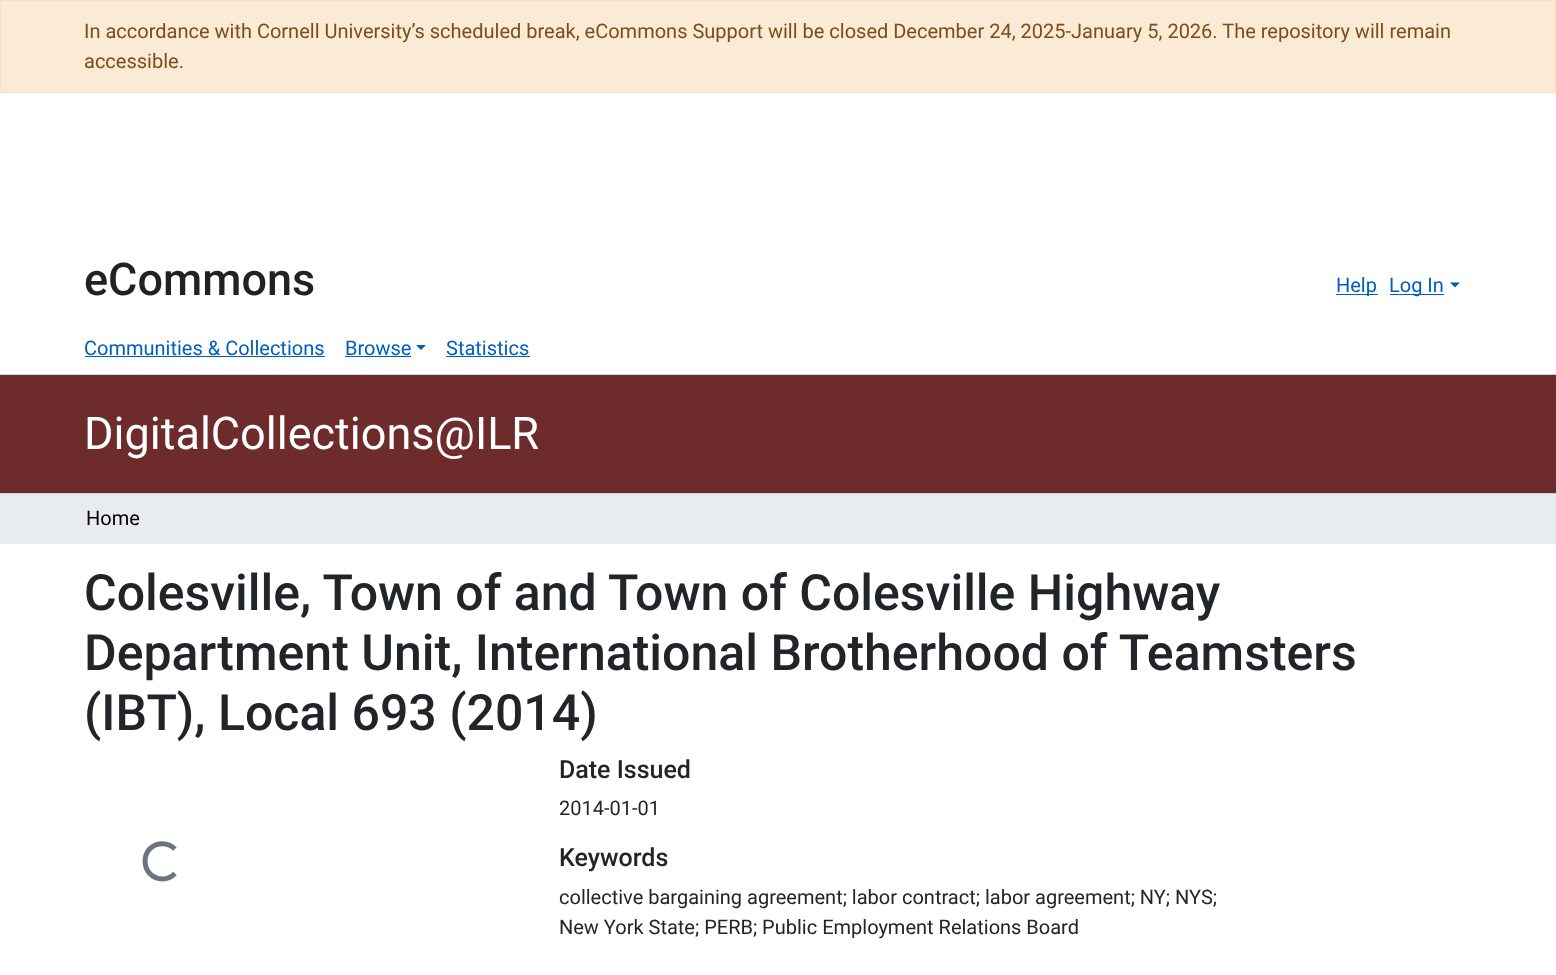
<svg xmlns="http://www.w3.org/2000/svg" xmlns:xlink="http://www.w3.org/1999/xlink" width="1556" height="975" viewBox="0 0 1556 975">
<style>
.cls-1{font:20px Roboto;fill:#7b4d1b}
.cls-2{font:500 45px Roboto;fill:#222222}
.cls-3{font:20px Roboto;fill:#005fbd}
.cls-4{font:45px Roboto;fill:#ffffff}
.cls-5{font:20px Roboto;fill:#000000}
.cls-6{font:500 50px Roboto;fill:#212529}
.cls-7{font:500 25px Roboto;fill:#212529}
.cls-8{font:20px Roboto;fill:#212529}
</style>
<rect width="100%" height="100%" fill="#ffffff"/>
<rect fill="#fbead6" stroke="#fae1c6" x="0.5" y="0.5" width="1555" height="92"/>
<rect fill="#ced4da" x="0" y="493" width="1556" height="1"/>
<rect fill="#005fbd" x="1336" y="294" width="42" height="1"/>
<rect fill="#005fbd" x="1390" y="294" width="54" height="1"/>
<path fill="#005fbd" d="M1450 282.5H1460L1455 287.5Z"/>
<rect fill="#ced4da" x="0" y="374" width="1556" height="1"/>
<rect fill="#005fbd" x="85" y="356" width="240" height="1"/>
<rect fill="#005fbd" x="345" y="356" width="66" height="1"/>
<path fill="#005fbd" d="M416 345H426L421 350Z"/>
<rect fill="#005fbd" x="446" y="356" width="84" height="1"/>
<rect fill="#6d2b2b" x="0" y="375" width="1556" height="118"/>
<rect fill="#e9ecef" x="0" y="494" width="1556" height="50"/>
<path fill="none" stroke="#6c757d" stroke-width="5" d="M175 873.5C171.5 877 167 879 162.5 879C141.5 879 138.5 848 159 844C165 843 171 845 175 849"/>
<text class="cls-1"><tspan x="84" y="38">In accordance with Cornell University’s scheduled break, eCommons Support will be closed December 24, 2025-January 5, 2026. The repository will remain</tspan><tspan x="84" y="68">accessible.</tspan></text>
<text class="cls-2" x="84" y="295">eCommons</text>
<text class="cls-3" x="1336" y="292">Help</text>
<text class="cls-3" x="1389" y="292">Log In</text>
<text class="cls-3" x="84" y="355">Communities &amp; Collections</text>
<text class="cls-3" x="345" y="355">Browse</text>
<text class="cls-3" x="446" y="355">Statistics</text>
<text class="cls-4" x="84" y="449">DigitalCollections@ILR</text>
<text class="cls-5" x="86" y="525">Home</text>
<text class="cls-6"><tspan x="84" y="610">Colesville, Town of and Town of Colesville Highway</tspan><tspan x="84" y="670">Department Unit, International Brotherhood of Teamsters</tspan><tspan x="84" y="730">(IBT), Local 693 (2014)</tspan></text>
<text class="cls-7" x="559" y="778">Date Issued</text>
<text class="cls-8" x="559" y="815">2014-01-01</text>
<text class="cls-7" x="559" y="866">Keywords</text>
<text class="cls-8"><tspan x="559" y="904">collective bargaining agreement; labor contract; labor agreement; NY; NYS;</tspan><tspan x="559" y="934">New York State; PERB; Public Employment Relations Board</tspan></text>
</svg>
